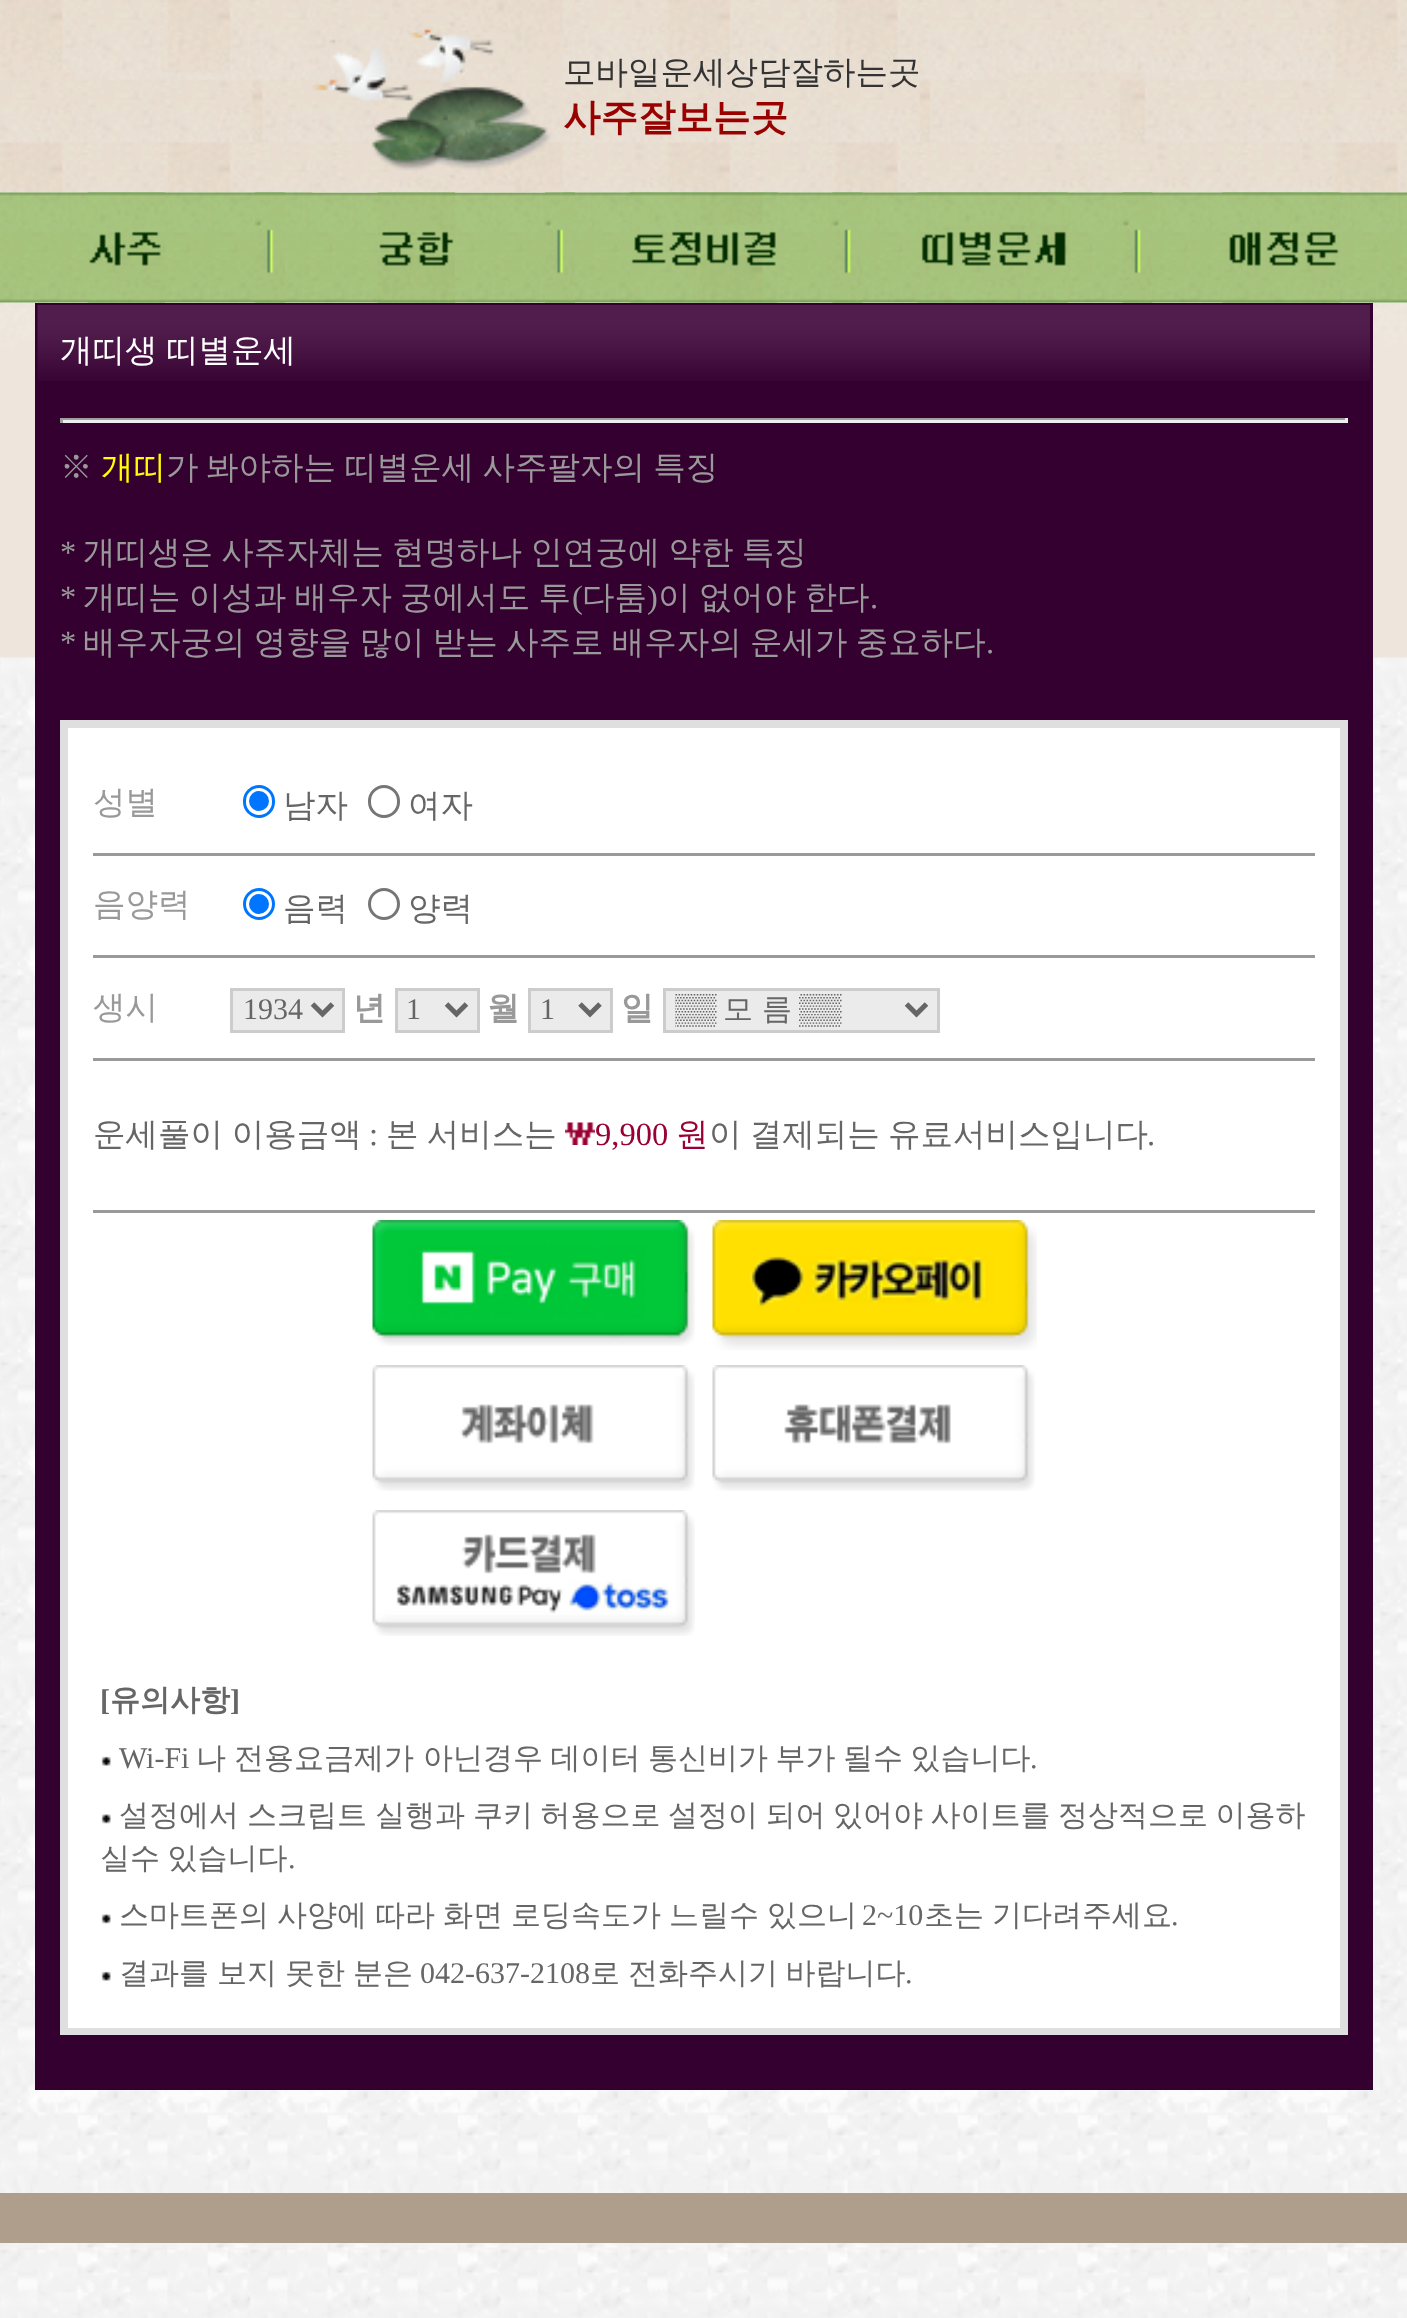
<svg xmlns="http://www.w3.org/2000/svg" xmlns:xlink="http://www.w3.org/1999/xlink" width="1407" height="2318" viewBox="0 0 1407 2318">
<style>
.cls-1{font:500 32.5px WenQuanYi Zen Hei;fill:#333333}
.cls-2{font:bold 37.5px WenQuanYi Zen Hei;fill:#990000}
.cls-3{font:500 32.5px WenQuanYi Zen Hei;fill:#ffffff}
.cls-4{font:500 32.5px WenQuanYi Zen Hei;fill:#999999}
.cls-5{font:500 32.5px WenQuanYi Zen Hei;fill:#ffff00}
.cls-6{font:32.5px Liberation Serif;fill:#999999}
.cls-7{font:500 32.5px WenQuanYi Zen Hei;fill:#666666}
.cls-8{font:30px Liberation Serif;fill:#666666}
.cls-9{font:bold 32.5px WenQuanYi Zen Hei;fill:#999999}
.cls-10{font:500 30px WenQuanYi Zen Hei;fill:#666666}
.cls-11{font:32.5px Liberation Serif;fill:#666666}
.cls-12{font:32.5px Liberation Serif;fill:#990033}
.cls-13{font:500 32.5px WenQuanYi Zen Hei;fill:#990033}
.cls-14{font:bold 30px Liberation Serif;fill:#666666}
.cls-15{font:bold 30px WenQuanYi Zen Hei;fill:#666666}
</style>
<defs>
<clipPath id="clip1"><rect x="675" y="990" width="223" height="40"/></clipPath>
</defs>
<rect width="100%" height="100%" fill="#ffffff"/>
<image xlink:href="image0.png" x="0" y="657" width="1407" height="1661"/>
<image xlink:href="image1.png" x="0" y="192" width="1407" height="466"/>
<image xlink:href="image2.png" x="0" y="0" width="1407" height="193"/>
<image xlink:href="image4.png" x="0" y="192" width="1407" height="111"/>
<image xlink:href="image3.png" x="312" y="0" width="251" height="193"/>
<image xlink:href="image5.png" x="87" y="192" width="78" height="111"/>
<image xlink:href="image6.png" x="255" y="192" width="30" height="111"/>
<image xlink:href="image7.png" x="377" y="192" width="78" height="111"/>
<image xlink:href="image8.png" x="545" y="192" width="30" height="111"/>
<image xlink:href="image9.png" x="630" y="192" width="148" height="111"/>
<image xlink:href="image10.png" x="832" y="192" width="31" height="111"/>
<image xlink:href="image11.png" x="917" y="192" width="151" height="111"/>
<image xlink:href="image12.png" x="1122" y="192" width="31" height="111"/>
<image xlink:href="image13.png" x="1222" y="192" width="118" height="111"/>
<rect fill="#330030" x="35" y="303" width="1338" height="1787"/>
<image xlink:href="image14.png" x="37" y="305" width="1333" height="76"/>
<rect fill="#9f9f9f" x="60" y="418" width="1288" height="2"/>
<rect fill="#eeeeee" x="1345" y="418" width="3" height="5"/>
<rect fill="#eeeeee" x="60" y="420" width="1288" height="3"/>
<rect fill="#9f9f9f" x="60" y="418" width="3" height="5"/>
<rect fill="#dfdfdf" x="60" y="720" width="1288" height="1315"/>
<rect fill="#ffffff" x="68" y="728" width="1272" height="1300"/>
<rect fill="none" stroke="#0075ff" stroke-width="3" x="244.5" y="786.5" width="29" height="30" rx="14.5"/>
<circle fill="#0075ff" cx="259" cy="801" r="10"/>
<rect fill="none" stroke="#767676" stroke-width="3" x="369.5" y="786.5" width="29" height="30" rx="14.5"/>
<rect fill="#999999" x="93" y="853" width="1222" height="3"/>
<circle fill="none" stroke="#0075ff" stroke-width="3" cx="259" cy="904" r="14.5"/>
<circle fill="#0075ff" cx="259" cy="904" r="10"/>
<circle fill="none" stroke="#767676" stroke-width="3" cx="384" cy="904" r="14.5"/>
<rect fill="#999999" x="93" y="955" width="1222" height="3"/>
<rect fill="#ebebeb" stroke="#cccccc" stroke-width="3" x="231.5" y="989.5" width="112" height="42"/>
<path fill="none" stroke="#666666" stroke-width="5" d="M312.5 1004L322.5 1014L332.5 1004"/>
<rect fill="#ebebeb" stroke="#cccccc" stroke-width="3" x="396.5" y="989.5" width="82" height="42"/>
<path fill="none" stroke="#666666" stroke-width="5" d="M446.5 1004L456.5 1014L466.5 1004"/>
<rect fill="#ebebeb" stroke="#cccccc" stroke-width="3" x="529.5" y="989.5" width="82" height="42"/>
<path fill="none" stroke="#666666" stroke-width="5" d="M580 1004L590 1014L600 1004"/>
<rect fill="#ebebeb" stroke="#cccccc" stroke-width="3" x="664.5" y="989.5" width="274" height="42"/>
<path fill="none" stroke="#666666" stroke-width="5" d="M906.5 1004L916.5 1014L926.5 1004"/>
<rect fill="#999999" x="93" y="1058" width="1222" height="3"/>
<image xlink:href="image15.png" x="565" y="1122" width="30" height="23"/>
<rect fill="#999999" x="93" y="1210" width="1222" height="3"/>
<image xlink:href="image16.png" x="372" y="1220" width="323" height="126"/>
<image xlink:href="image17.png" x="712" y="1220" width="325" height="130"/>
<image xlink:href="image18.png" x="372" y="1365" width="323" height="126"/>
<image xlink:href="image19.png" x="712" y="1365" width="323" height="126"/>
<image xlink:href="image20.png" x="372" y="1510" width="323" height="126"/>
<image xlink:href="image21.png" x="101" y="1756" width="10" height="10"/>
<image xlink:href="image22.png" x="101" y="1814" width="10" height="10"/>
<image xlink:href="image22.png" x="101" y="1914" width="10" height="10"/>
<image xlink:href="image21.png" x="101" y="1971" width="10" height="10"/>
<rect fill="#af9e8b" x="0" y="2193" width="1407" height="50"/>
<text class="cls-1" x="563" y="83">모바일운세상담잘하는곳</text>
<text class="cls-2" x="563" y="130">사주잘보는곳</text>
<text class="cls-3" x="60" y="361">개띠생</text>
<text class="cls-3" x="166" y="361">띠별운세</text>
<text class="cls-4" x="60" y="478">※</text>
<text class="cls-5" x="101" y="478">개띠</text>
<text class="cls-4" x="166" y="478">가</text>
<text class="cls-4" x="206" y="478" word-spacing="-1.5">봐야하는 띠별운세 사주팔자의 특징</text>
<text class="cls-6" x="60" y="563">*</text>
<text class="cls-4" x="83" y="563" word-spacing="-1.5">개띠생은 사주자체는 현명하나 인연궁에 약한 특징</text>
<text class="cls-6" x="60" y="608">*</text>
<text class="cls-4" x="83" y="608" word-spacing="-1.5">개띠는 이성과 배우자 궁에서도 투</text>
<text class="cls-6" x="572" y="608">(</text>
<text class="cls-4" x="582" y="608">다툼</text>
<text class="cls-6" x="647" y="608">)</text>
<text class="cls-4" x="658" y="608" word-spacing="-1.5">이 없어야 한다</text>
<text class="cls-6" x="870" y="608">.</text>
<text class="cls-6" x="60" y="653">*</text>
<text class="cls-4" x="83" y="653" word-spacing="-1.5">배우자궁의 영향을 많이 받는 사주로 배우자의 운세가 중요하다</text>
<text class="cls-6" x="986" y="653">.</text>
<text class="cls-4" x="93" y="813">성별</text>
<text class="cls-7" x="283" y="816">남자</text>
<text class="cls-7" x="408" y="816">여자</text>
<text class="cls-4" x="93" y="915">음양력</text>
<text class="cls-7" x="283" y="919">음력</text>
<text class="cls-7" x="408" y="919">양력</text>
<text class="cls-4" x="93" y="1018">생시</text>
<text class="cls-8" x="243" y="1019">1934</text>
<text class="cls-9" x="353" y="1019">년</text>
<text class="cls-8" x="406" y="1019">1</text>
<text class="cls-9" x="487" y="1019">월</text>
<text class="cls-8" x="540" y="1019">1</text>
<text class="cls-9" x="621" y="1019">일</text>
<g clip-path="url(#clip1)">
<text class="cls-8" x="674" y="1019">▒▒</text>
</g>
<text class="cls-10" x="723" y="1019">모 름</text>
<text class="cls-8" x="799" y="1019">▒▒</text>
<text class="cls-7" x="93" y="1145" word-spacing="-1">운세풀이 이용금액</text>
<text class="cls-11" x="369" y="1145">:</text>
<text class="cls-7" x="386" y="1145" word-spacing="-1.5">본 서비스는</text>
<text class="cls-12" x="595" y="1145">9,900</text>
<text class="cls-13" x="676" y="1145">원</text>
<text class="cls-7" x="709" y="1145" word-spacing="-1.5">이 결제되는 유료서비스입니다</text>
<text class="cls-11" x="1147" y="1145">.</text>
<text class="cls-14" x="100" y="1710">[</text>
<text class="cls-15" x="110" y="1710">유의사항</text>
<text class="cls-14" x="230" y="1710">]</text>
<text class="cls-8" x="119" y="1768">Wi-Fi</text>
<text class="cls-10" x="196" y="1768" word-spacing="-1">나 전용요금제가</text>
<text class="cls-10" x="423" y="1768" word-spacing="-1.5">아닌경우 데이터 통신비가 부가 될수 있습니다</text>
<text class="cls-8" x="1030" y="1768">.</text>
<text class="cls-10" x="119" y="1825" word-spacing="-1">설정에서 스크립트 실행과</text>
<text class="cls-10" x="473" y="1825" word-spacing="-1.5">쿠키 허용으로 설정이 되어 있어야 사이트를 정상적으로 이용하</text>
<text class="cls-10" x="100" y="1868" word-spacing="-1.5">실수 있습니다</text>
<text class="cls-8" x="288" y="1868">.</text>
<text class="cls-10" x="119" y="1925" word-spacing="-1">스마트폰의 사양에 따라</text>
<text class="cls-10" x="443" y="1925" word-spacing="-1">화면 로딩속도가 느릴수 있으니</text>
<text class="cls-8" x="862" y="1925">2~10</text>
<text class="cls-10" x="924" y="1925" word-spacing="-1">초는 기다려주세요</text>
<text class="cls-8" x="1171" y="1925">.</text>
<text class="cls-10" x="119" y="1983" word-spacing="-1">결과를 보지 못한 분은</text>
<text class="cls-8" x="420" y="1983">042-637-2108</text>
<text class="cls-10" x="590" y="1983">로</text>
<text class="cls-10" x="628" y="1983" word-spacing="-1.5">전화주시기 바랍니다</text>
<text class="cls-8" x="905" y="1983">.</text>
</svg>
